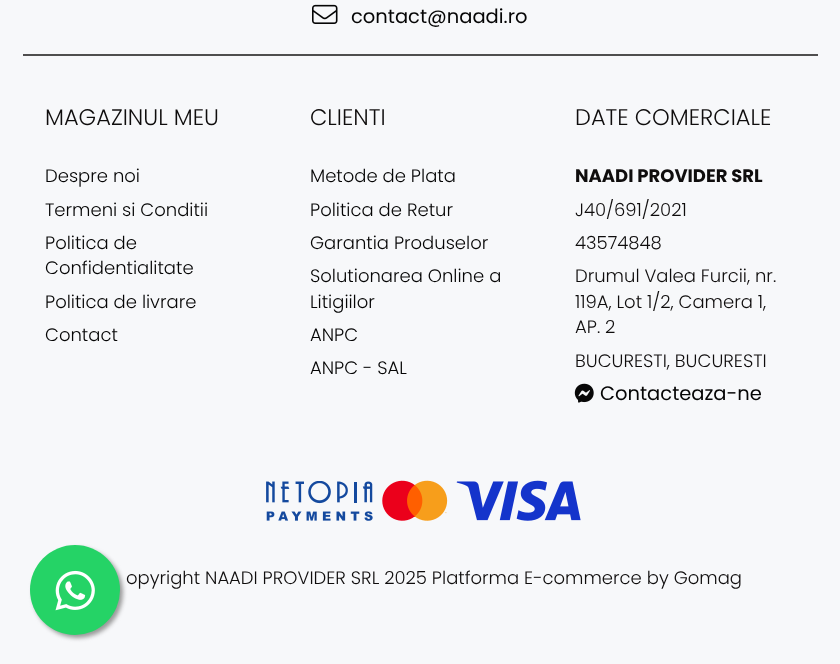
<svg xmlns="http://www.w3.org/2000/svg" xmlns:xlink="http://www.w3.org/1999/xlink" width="840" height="664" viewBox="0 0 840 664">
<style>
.cls-1{font:19.5px Poppins;fill:#050505}
.cls-2{font:300 22.5px Poppins;fill:#0f0d0d}
.cls-3{font:300 18px Poppins;fill:#050505}
.cls-4{font:bold 18px Poppins;fill:#0f0d0d}
.cls-5{font:300 18px Poppins;fill:#0f0d0d}
</style>
<rect width="100%" height="100%" fill="#f7f8fa"/>
<rect fill="#4f4e4e" x="23" y="54" width="795" height="2"/>
<image xlink:href="image0.png" x="312" y="4" width="26" height="20"/>
<image xlink:href="image1.png" x="574" y="383" width="20" height="20"/>
<image xlink:href="image2.png" x="266" y="480" width="315" height="41"/>
<rect fill="#999999" filter="blur(2px)" x="33" y="548" width="90" height="90" rx="45"/>
<circle fill="#25d366" cx="75" cy="590" r="45"/>
<image xlink:href="image3.png" x="55" y="570" width="40" height="41"/>
<text class="cls-1" x="351" y="23">contact@naadi.ro</text>
<text class="cls-2" x="45" y="125">MAGAZINUL MEU</text>
<text class="cls-3"><tspan x="45" y="182">Despre noi</tspan><tspan x="45" y="216">Termeni si Conditii</tspan><tspan x="45" y="249">Politica de</tspan><tspan x="45" y="274">Confidentialitate</tspan><tspan x="45" y="308">Politica de livrare</tspan><tspan x="45" y="341">Contact</tspan></text>
<text class="cls-2" x="310" y="125">CLIENTI</text>
<text class="cls-3"><tspan x="310" y="182">Metode de Plata</tspan><tspan x="310" y="216">Politica de Retur</tspan><tspan x="310" y="249">Garantia Produselor</tspan><tspan x="310" y="282">Solutionarea Online a</tspan><tspan x="310" y="308">Litigiilor</tspan><tspan x="310" y="341">ANPC</tspan><tspan x="310" y="374">ANPC - SAL</tspan></text>
<text class="cls-2" x="575" y="125">DATE COMERCIALE</text>
<text class="cls-4" x="575" y="182">NAADI PROVIDER SRL</text>
<text class="cls-5"><tspan x="575" y="216">J40/691/2021</tspan><tspan x="575" y="249">43574848</tspan><tspan x="575" y="282">Drumul Valea Furcii, nr.</tspan><tspan x="575" y="308">119A, Lot 1/2, Camera 1,</tspan><tspan x="575" y="333">AP. 2</tspan><tspan x="575" y="367">BUCURESTI, BUCURESTI</tspan></text>
<text class="cls-1" x="600" y="400">Contacteaza-ne</text>
<text class="cls-5" x="126" y="584">opyright NAADI PROVIDER SRL 2025 Platforma E-commerce by Gomag</text>
</svg>
